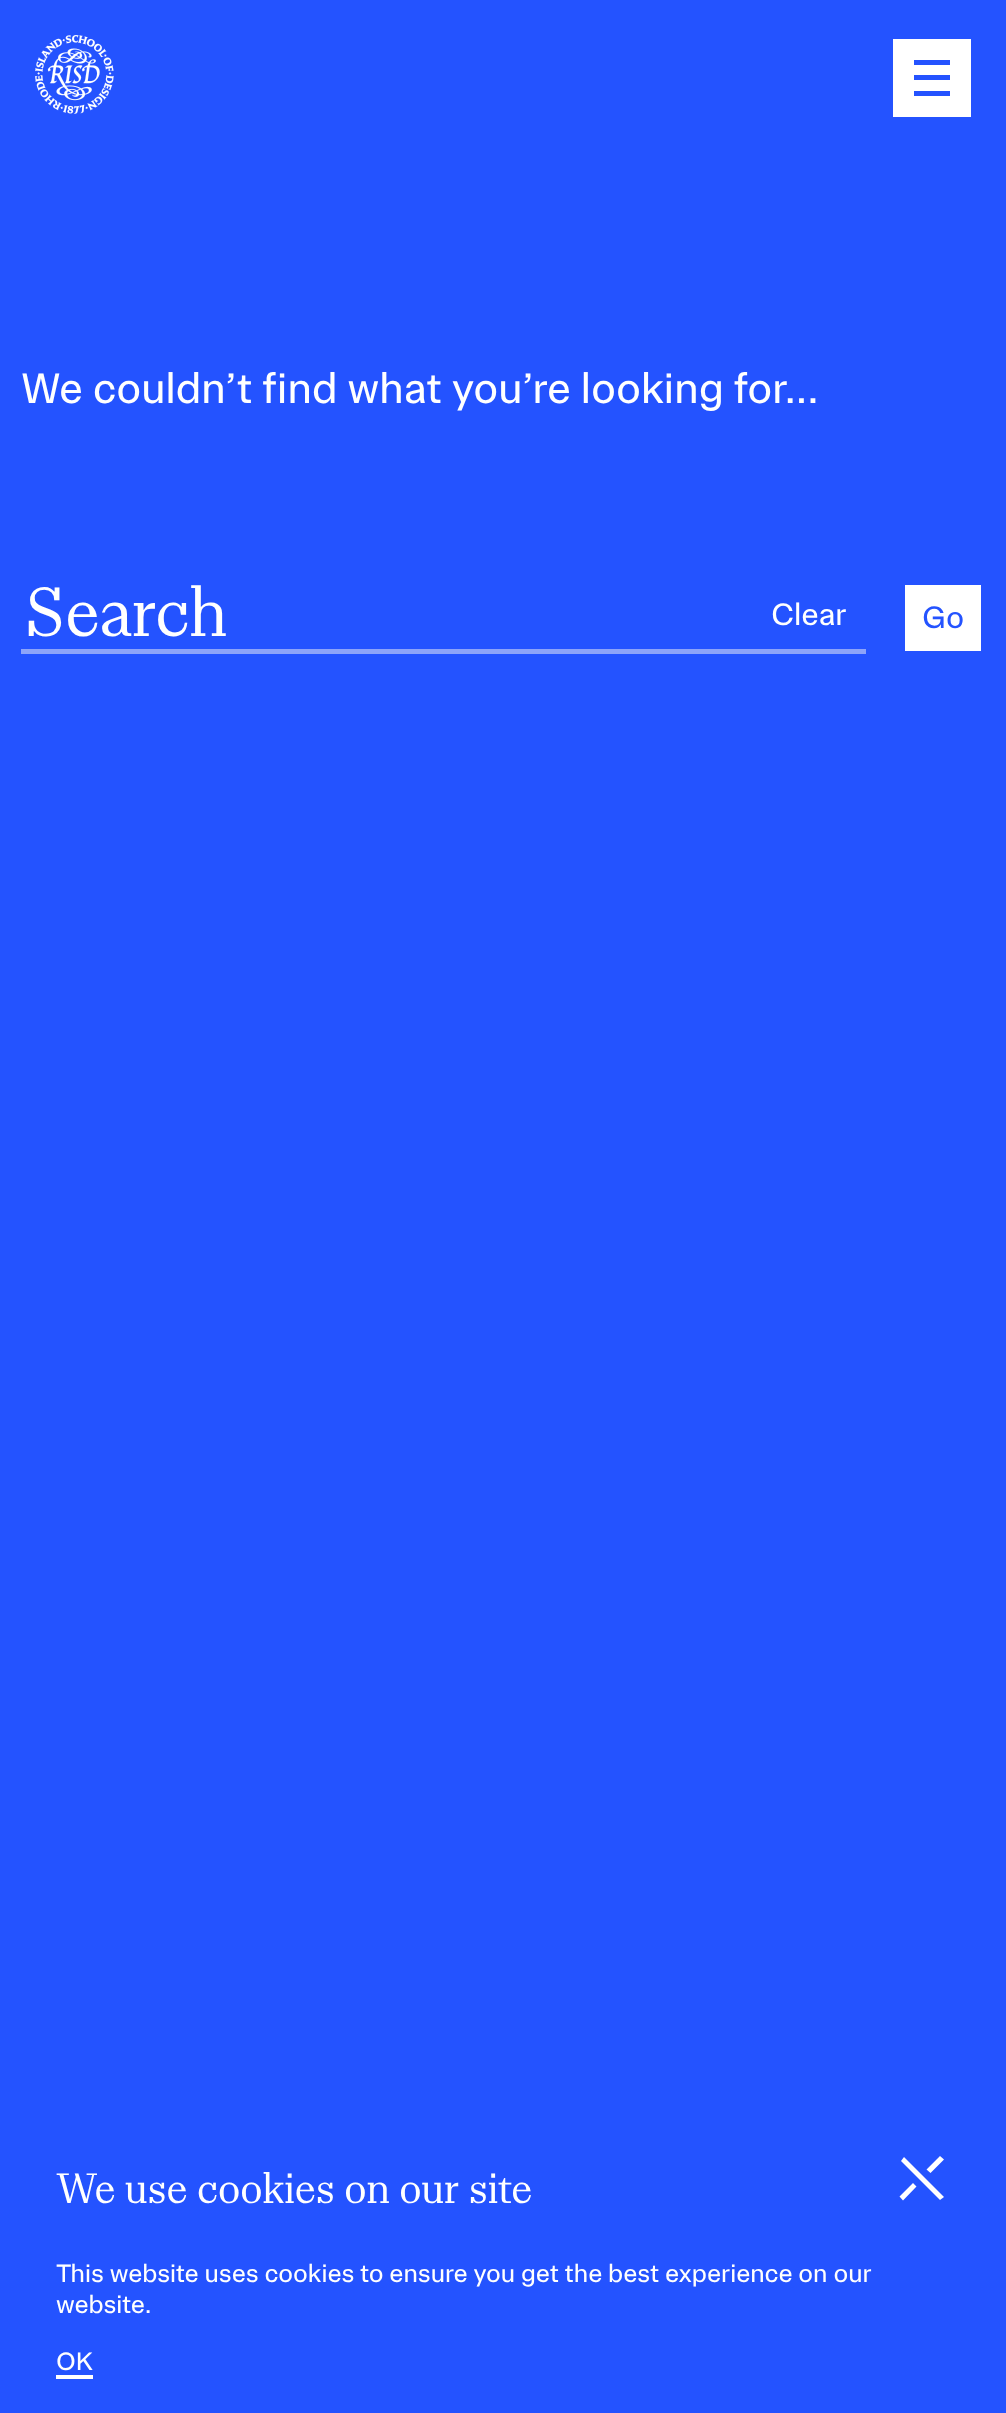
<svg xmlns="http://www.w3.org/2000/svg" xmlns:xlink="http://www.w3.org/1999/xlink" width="1006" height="2413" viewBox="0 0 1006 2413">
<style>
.cls-1{font:38.5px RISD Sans;fill:#ffffff}
.cls-2{font:300 63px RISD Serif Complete;fill:#ffffff}
.cls-3{font:28px RISD Sans;fill:#ffffff}
.cls-4{font:28px RISD Sans;fill:#2453ff}
.cls-5{font:300 38.5px RISD Serif Complete;fill:#ffffff}
.cls-6{font:22.75px RISD Sans;fill:#ffffff}
</style>
<rect width="100%" height="100%" fill="#2453ff"/>
<image xlink:href="image0.png" x="35" y="35" width="79" height="79"/>
<rect fill="#ffffff" x="893" y="39" width="78" height="78"/>
<rect fill="#2453ff" x="914" y="75" width="36" height="5"/>
<rect fill="#2453ff" x="914" y="60" width="36" height="5"/>
<rect fill="#2453ff" x="914" y="91" width="36" height="5"/>
<rect fill="#8da4f9" x="21" y="649" width="845" height="5"/>
<rect fill="#ffffff" x="905" y="585" width="76" height="66"/>
<rect fill="#ffffff" x="56" y="2375" width="37" height="4"/>
<path fill="#ffffff" d="M904 2157L944 2197L940 2200L901 2161Z"/>
<path fill="#ffffff" d="M916.5 2186.5L903 2200.5L899.5 2196.5L913 2183ZM944 2159.5L930.5 2173L926.5 2169.5L940 2156Z"/>
<text class="cls-1" x="21" y="403">We couldn’t find what you’re looking for...</text>
<text class="cls-2" x="25" y="636">Search</text>
<text class="cls-3" x="771" y="625">Clear</text>
<text class="cls-4" x="922" y="628">Go</text>
<text class="cls-5" x="56" y="2203">We use cookies on our site</text>
<text class="cls-6"><tspan x="56" y="2282">This website uses cookies to ensure you get the best experience on our</tspan><tspan x="56" y="2313">website.</tspan></text>
<text class="cls-6" x="56" y="2370">OK</text>
</svg>
